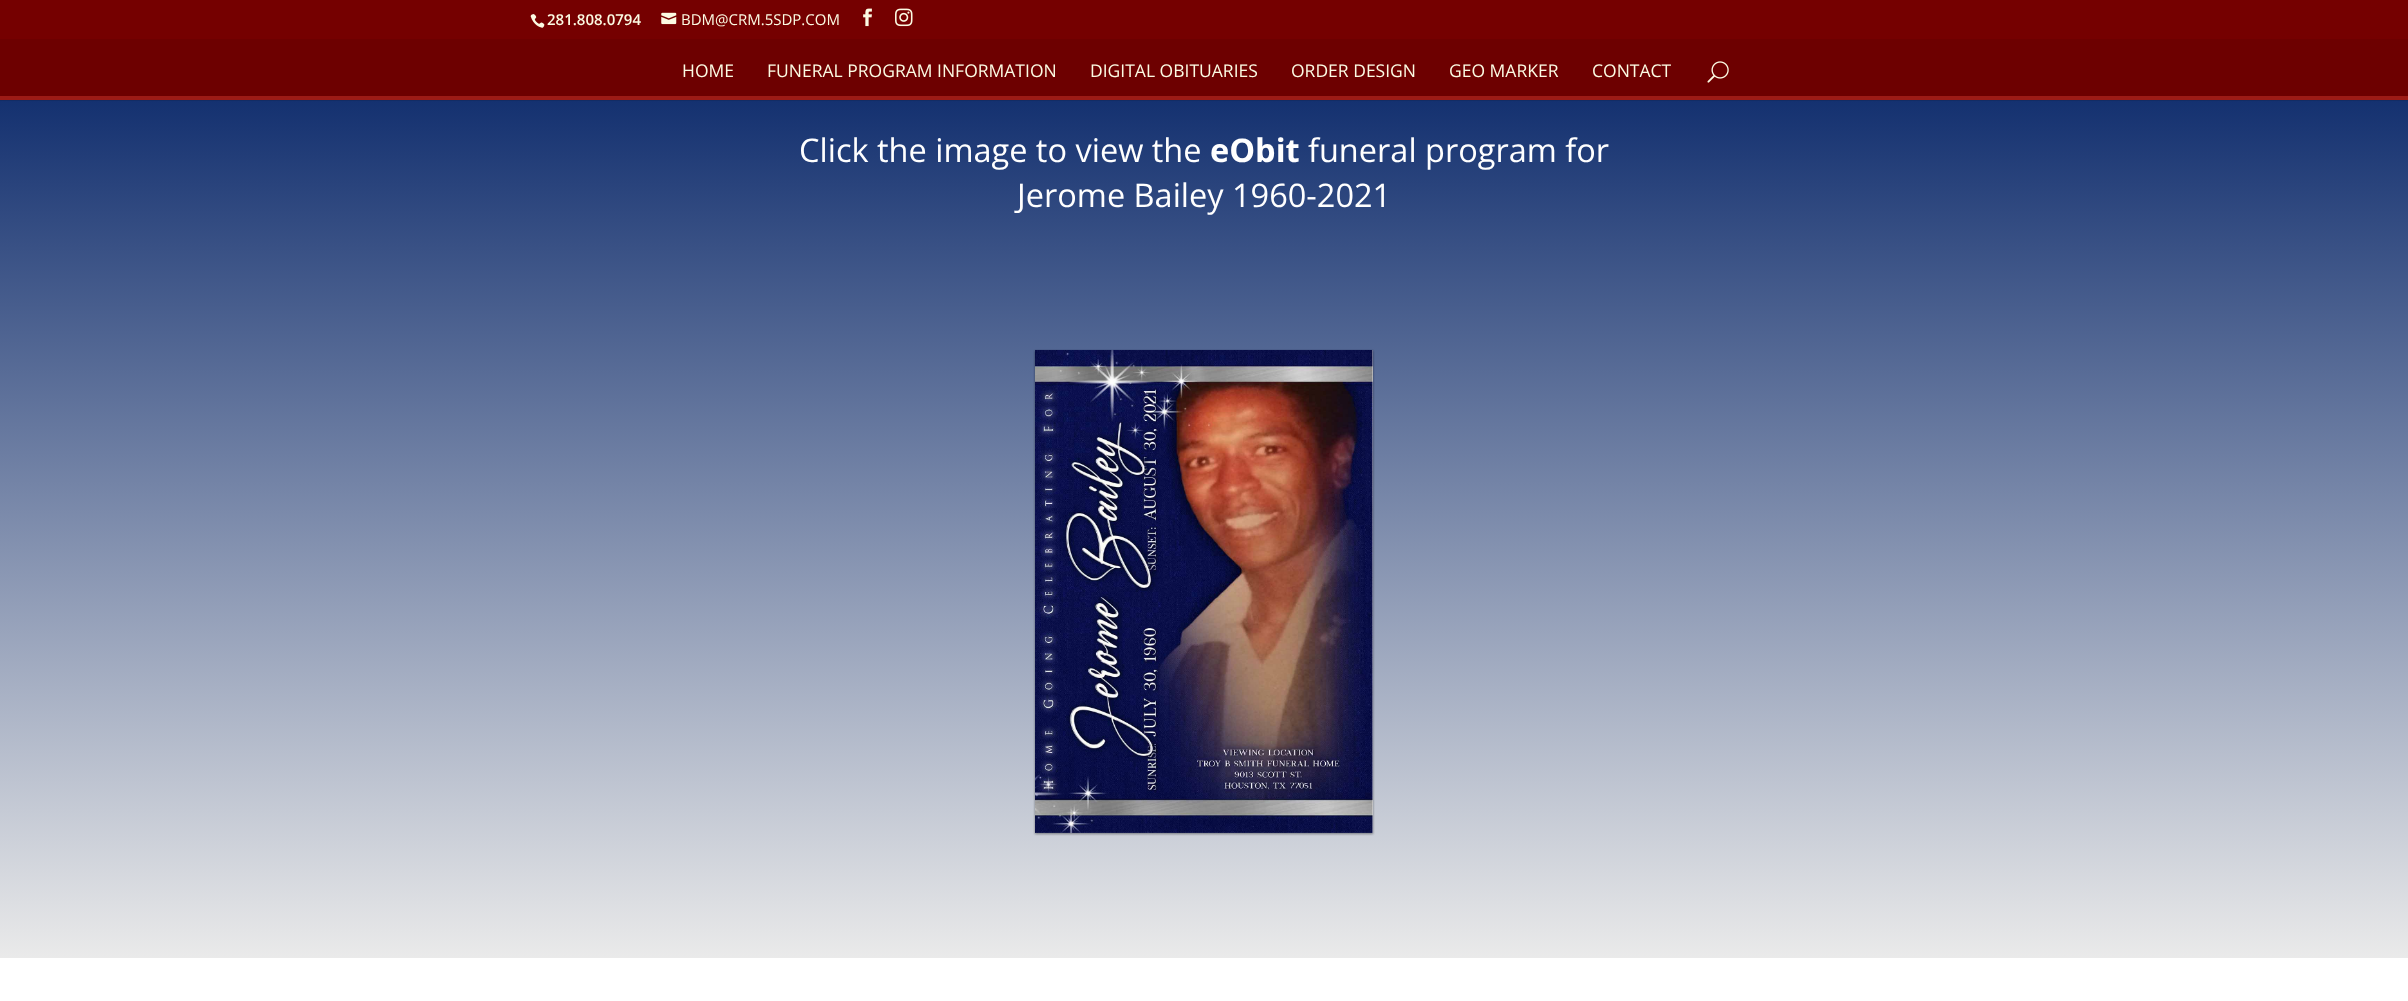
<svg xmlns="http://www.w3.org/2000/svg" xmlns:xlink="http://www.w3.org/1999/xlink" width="2408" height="1001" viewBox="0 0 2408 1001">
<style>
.cls-1{font:600 15px Open Sans;fill:#fcfbe3}
.cls-2{font:15px Open Sans;fill:#fcfbe3}
.cls-3{font:17.5px Open Sans;fill:#fcfbe3}
.cls-4{font:32.5px Open Sans;fill:#ffffff}
.cls-5{font:bold 32.5px Open Sans;fill:#ffffff}
</style>
<defs>
<linearGradient id="g1" gradientUnits="userSpaceOnUse" x1="1204" y1="100" x2="1204" y2="958"><stop offset="0" stop-color="#143170"/><stop offset="1" stop-color="#eaeaea"/></linearGradient>
</defs>
<rect width="100%" height="100%" fill="#ffffff"/>
<rect fill="#750000" x="0" y="0" width="2408" height="39"/>
<image xlink:href="image0.png" x="530" y="14" width="15" height="14"/>
<image xlink:href="image1.png" x="661" y="12" width="16" height="13"/>
<image xlink:href="image2.png" x="863" y="8" width="9" height="19"/>
<image xlink:href="image3.png" x="895" y="8" width="18" height="19"/>
<path fill="#122c65" d="M0 100V101H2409V40V100Z"/>
<rect fill="#6d0000" x="0" y="39" width="2408" height="57"/>
<rect fill="#9c1b16" x="0" y="96" width="2408" height="4"/>
<image xlink:href="image4.png" x="1707" y="61" width="22" height="22"/>
<rect fill="url(#g1)" x="0" y="101" width="2408" height="857"/>
<rect fill="#000000" fill-opacity="0.22" filter="blur(1px)" x="1035" y="351" width="338" height="483"/>
<rect fill="#000000" fill-opacity="0.22" filter="blur(1px)" x="1035" y="351" width="338" height="483"/>
<rect fill="#eeeeee" x="1035" y="350" width="338" height="483"/>
<image xlink:href="image5.png" x="1035" y="349" width="338" height="484"/>
<text class="cls-1" x="547" y="25">281.808.0794</text>
<text class="cls-2" x="681" y="25">BDM@CRM.5SDP.COM</text>
<text class="cls-3" x="682" y="77">HOME</text>
<text class="cls-3" x="767" y="77">FUNERAL PROGRAM INFORMATION</text>
<text class="cls-3" x="1090" y="77">DIGITAL OBITUARIES</text>
<text class="cls-3" x="1291" y="77">ORDER DESIGN</text>
<text class="cls-3" x="1449" y="77">GEO MARKER</text>
<text class="cls-3" x="1592" y="77">CONTACT</text>
<text class="cls-4" x="799" y="162">Click the image to view the</text>
<text class="cls-5" x="1210" y="162">eObit</text>
<text class="cls-4" x="1308" y="162">funeral program for</text>
<text class="cls-4" x="1017" y="207">Jerome Bailey 1960-2021</text>
</svg>
